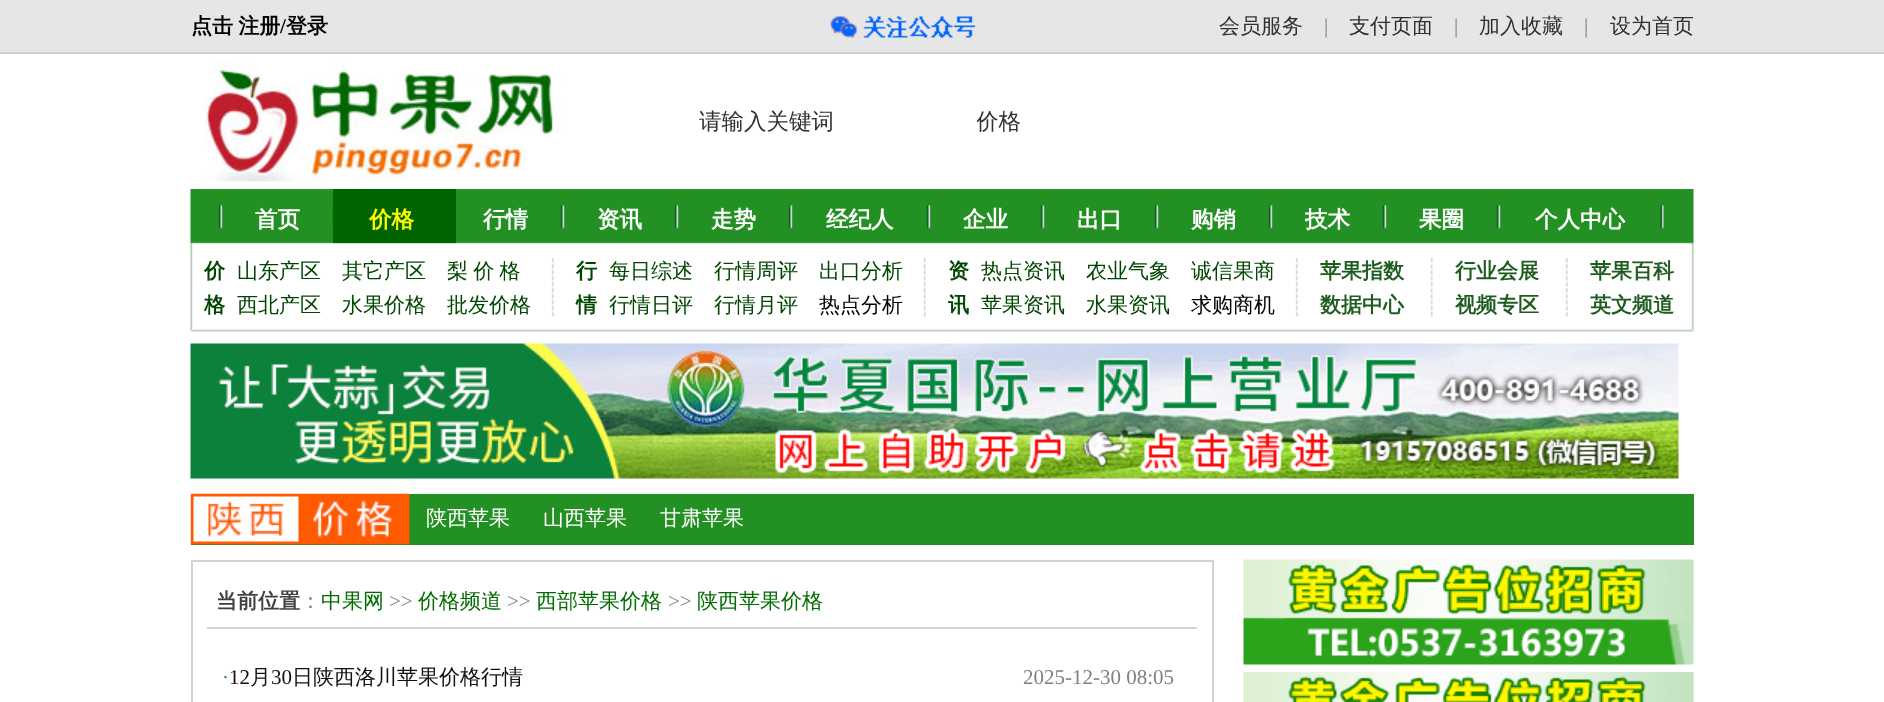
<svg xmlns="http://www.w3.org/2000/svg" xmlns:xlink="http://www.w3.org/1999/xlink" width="1884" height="702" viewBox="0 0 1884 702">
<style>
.cls-1{font:bold 21px WenQuanYi Zen Hei;fill:#000000}
.cls-2{font:bold 21px Liberation Serif;fill:#000000}
.cls-3{font:500 21px WenQuanYi Zen Hei;fill:#303030}
.cls-4{font:21px Liberation Serif;fill:#808080}
.cls-5{font:500 22.5px WenQuanYi Zen Hei;fill:#303030}
.cls-6{font:bold 22.5px WenQuanYi Zen Hei;fill:#ffffff}
.cls-7{font:bold 22.5px WenQuanYi Zen Hei;fill:#ffff00}
.cls-8{font:bold 21px WenQuanYi Zen Hei;fill:#004600}
.cls-9{font:500 21px WenQuanYi Zen Hei;fill:#004600}
.cls-10{font:500 21px WenQuanYi Zen Hei;fill:#000000}
.cls-11{font:bold 21px WenQuanYi Zen Hei;fill:#1f5c20}
.cls-12{font:500 21px WenQuanYi Zen Hei;fill:#ffffff}
.cls-13{font:bold 21px WenQuanYi Zen Hei;fill:#404040}
.cls-14{font:500 21px WenQuanYi Zen Hei;fill:#808080}
.cls-15{font:500 21px WenQuanYi Zen Hei;fill:#006d00}
.cls-16{font:21px Liberation Serif;fill:#229020}
.cls-17{font:21px Liberation Serif;fill:#101010}
.cls-18{font:500 21px WenQuanYi Zen Hei;fill:#101010}
</style>
<defs>
<clipPath id="clip1"><rect x="977" y="99" width="96" height="45"/></clipPath>
</defs>
<rect width="100%" height="100%" fill="#ffffff"/>
<image xlink:href="image0.png" x="0" y="0" width="1884" height="54"/>
<image xlink:href="image1.png" x="830" y="16" width="146" height="22"/>
<image xlink:href="image2.png" x="203" y="61" width="359" height="121"/>
<image xlink:href="image3.png" x="190" y="189" width="1504" height="143"/>
<rect fill="#006401" x="333" y="189" width="123" height="54"/>
<image xlink:href="image4.png" x="190" y="343" width="1489" height="136"/>
<rect fill="#239023" x="191" y="494" width="1503" height="51"/>
<image xlink:href="image5.png" x="190" y="493" width="220" height="52"/>
<rect fill="none" stroke="#d2d2d2" stroke-width="2" x="192" y="561" width="1021" height="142"/>
<rect fill="#d2d2d2" x="207" y="627" width="990" height="2"/>
<image xlink:href="image6.png" x="1243" y="559" width="451" height="106"/>
<image xlink:href="image7.png" x="1243" y="672" width="451" height="30"/>
<text class="cls-1" x="191" y="33" word-spacing="-1">点击 注册</text>
<text class="cls-2" x="280" y="33">/</text>
<text class="cls-1" x="286" y="33">登录</text>
<text class="cls-3" x="1219" y="33">会员服务</text>
<text class="cls-4" x="1324" y="33">|</text>
<text class="cls-3" x="1349" y="33">支付页面</text>
<text class="cls-4" x="1454" y="33">|</text>
<text class="cls-3" x="1479" y="33">加入收藏</text>
<text class="cls-4" x="1584" y="33">|</text>
<text class="cls-3" x="1610" y="33">设为首页</text>
<text class="cls-5" x="699" y="129">请输入关键词</text>
<g clip-path="url(#clip1)">
<text class="cls-5" x="976" y="129">价格</text>
</g>
<text class="cls-6" x="255" y="227">首页</text>
<text class="cls-7" x="369" y="227">价格</text>
<text class="cls-6" x="483" y="227">行情</text>
<text class="cls-6" x="597" y="227">资讯</text>
<text class="cls-6" x="711" y="227">走势</text>
<text class="cls-6" x="826" y="227">经纪人</text>
<text class="cls-6" x="963" y="227">企业</text>
<text class="cls-6" x="1077" y="227">出口</text>
<text class="cls-6" x="1191" y="227">购销</text>
<text class="cls-6" x="1305" y="227">技术</text>
<text class="cls-6" x="1419" y="227">果圈</text>
<text class="cls-6" x="1535" y="227">个人中心</text>
<text class="cls-8"><tspan x="204" y="278">价</tspan><tspan x="204" y="312">格</tspan></text>
<text class="cls-9" x="237" y="278">山东产区</text>
<text class="cls-9" x="342" y="278">其它产区</text>
<text class="cls-9" x="447" y="278" word-spacing="-1">梨 价 格</text>
<text class="cls-9" x="237" y="312">西北产区</text>
<text class="cls-9" x="342" y="312">水果价格</text>
<text class="cls-9" x="447" y="312">批发价格</text>
<text class="cls-8"><tspan x="576" y="278">行</tspan><tspan x="576" y="312">情</tspan></text>
<text class="cls-9" x="609" y="278">每日综述</text>
<text class="cls-9" x="714" y="278">行情周评</text>
<text class="cls-9" x="819" y="278">出口分析</text>
<text class="cls-9" x="609" y="312">行情日评</text>
<text class="cls-9" x="714" y="312">行情月评</text>
<text class="cls-10" x="819" y="312">热点分析</text>
<text class="cls-8"><tspan x="948" y="278">资</tspan><tspan x="948" y="312">讯</tspan></text>
<text class="cls-9" x="981" y="278">热点资讯</text>
<text class="cls-9" x="1086" y="278">农业气象</text>
<text class="cls-9" x="1191" y="278">诚信果商</text>
<text class="cls-9" x="981" y="312">苹果资讯</text>
<text class="cls-9" x="1086" y="312">水果资讯</text>
<text class="cls-10" x="1191" y="312">求购商机</text>
<text class="cls-11"><tspan x="1320" y="278">苹果指数</tspan><tspan x="1320" y="312">数据中心</tspan></text>
<text class="cls-11"><tspan x="1455" y="278">行业会展</tspan><tspan x="1455" y="312">视频专区</tspan></text>
<text class="cls-11"><tspan x="1590" y="278">苹果百科</tspan><tspan x="1590" y="312">英文频道</tspan></text>
<text class="cls-12" x="426" y="525">陕西苹果</text>
<text class="cls-12" x="543" y="525">山西苹果</text>
<text class="cls-12" x="660" y="525">甘肃苹果</text>
<text class="cls-13" x="216" y="608">当前位置</text>
<text class="cls-14" x="300" y="608">：</text>
<text class="cls-15" x="321" y="608">中果网</text>
<text class="cls-4" x="389" y="608">&gt;&gt;</text>
<text class="cls-15" x="418" y="608">价格频道</text>
<text class="cls-4" x="507" y="608">&gt;&gt;</text>
<text class="cls-15" x="536" y="608">西部苹果价格</text>
<text class="cls-4" x="668" y="608">&gt;&gt;</text>
<text class="cls-15" x="697" y="608">陕西苹果价格</text>
<text class="cls-16" x="222" y="684">·</text>
<text class="cls-17" x="229" y="684">12</text>
<text class="cls-18" x="250" y="684">月</text>
<text class="cls-17" x="271" y="684">30</text>
<text class="cls-18" x="292" y="684">日陕西洛川苹果价格行情</text>
<text class="cls-4" x="1023" y="684">2025-12-30 08:05</text>
</svg>
